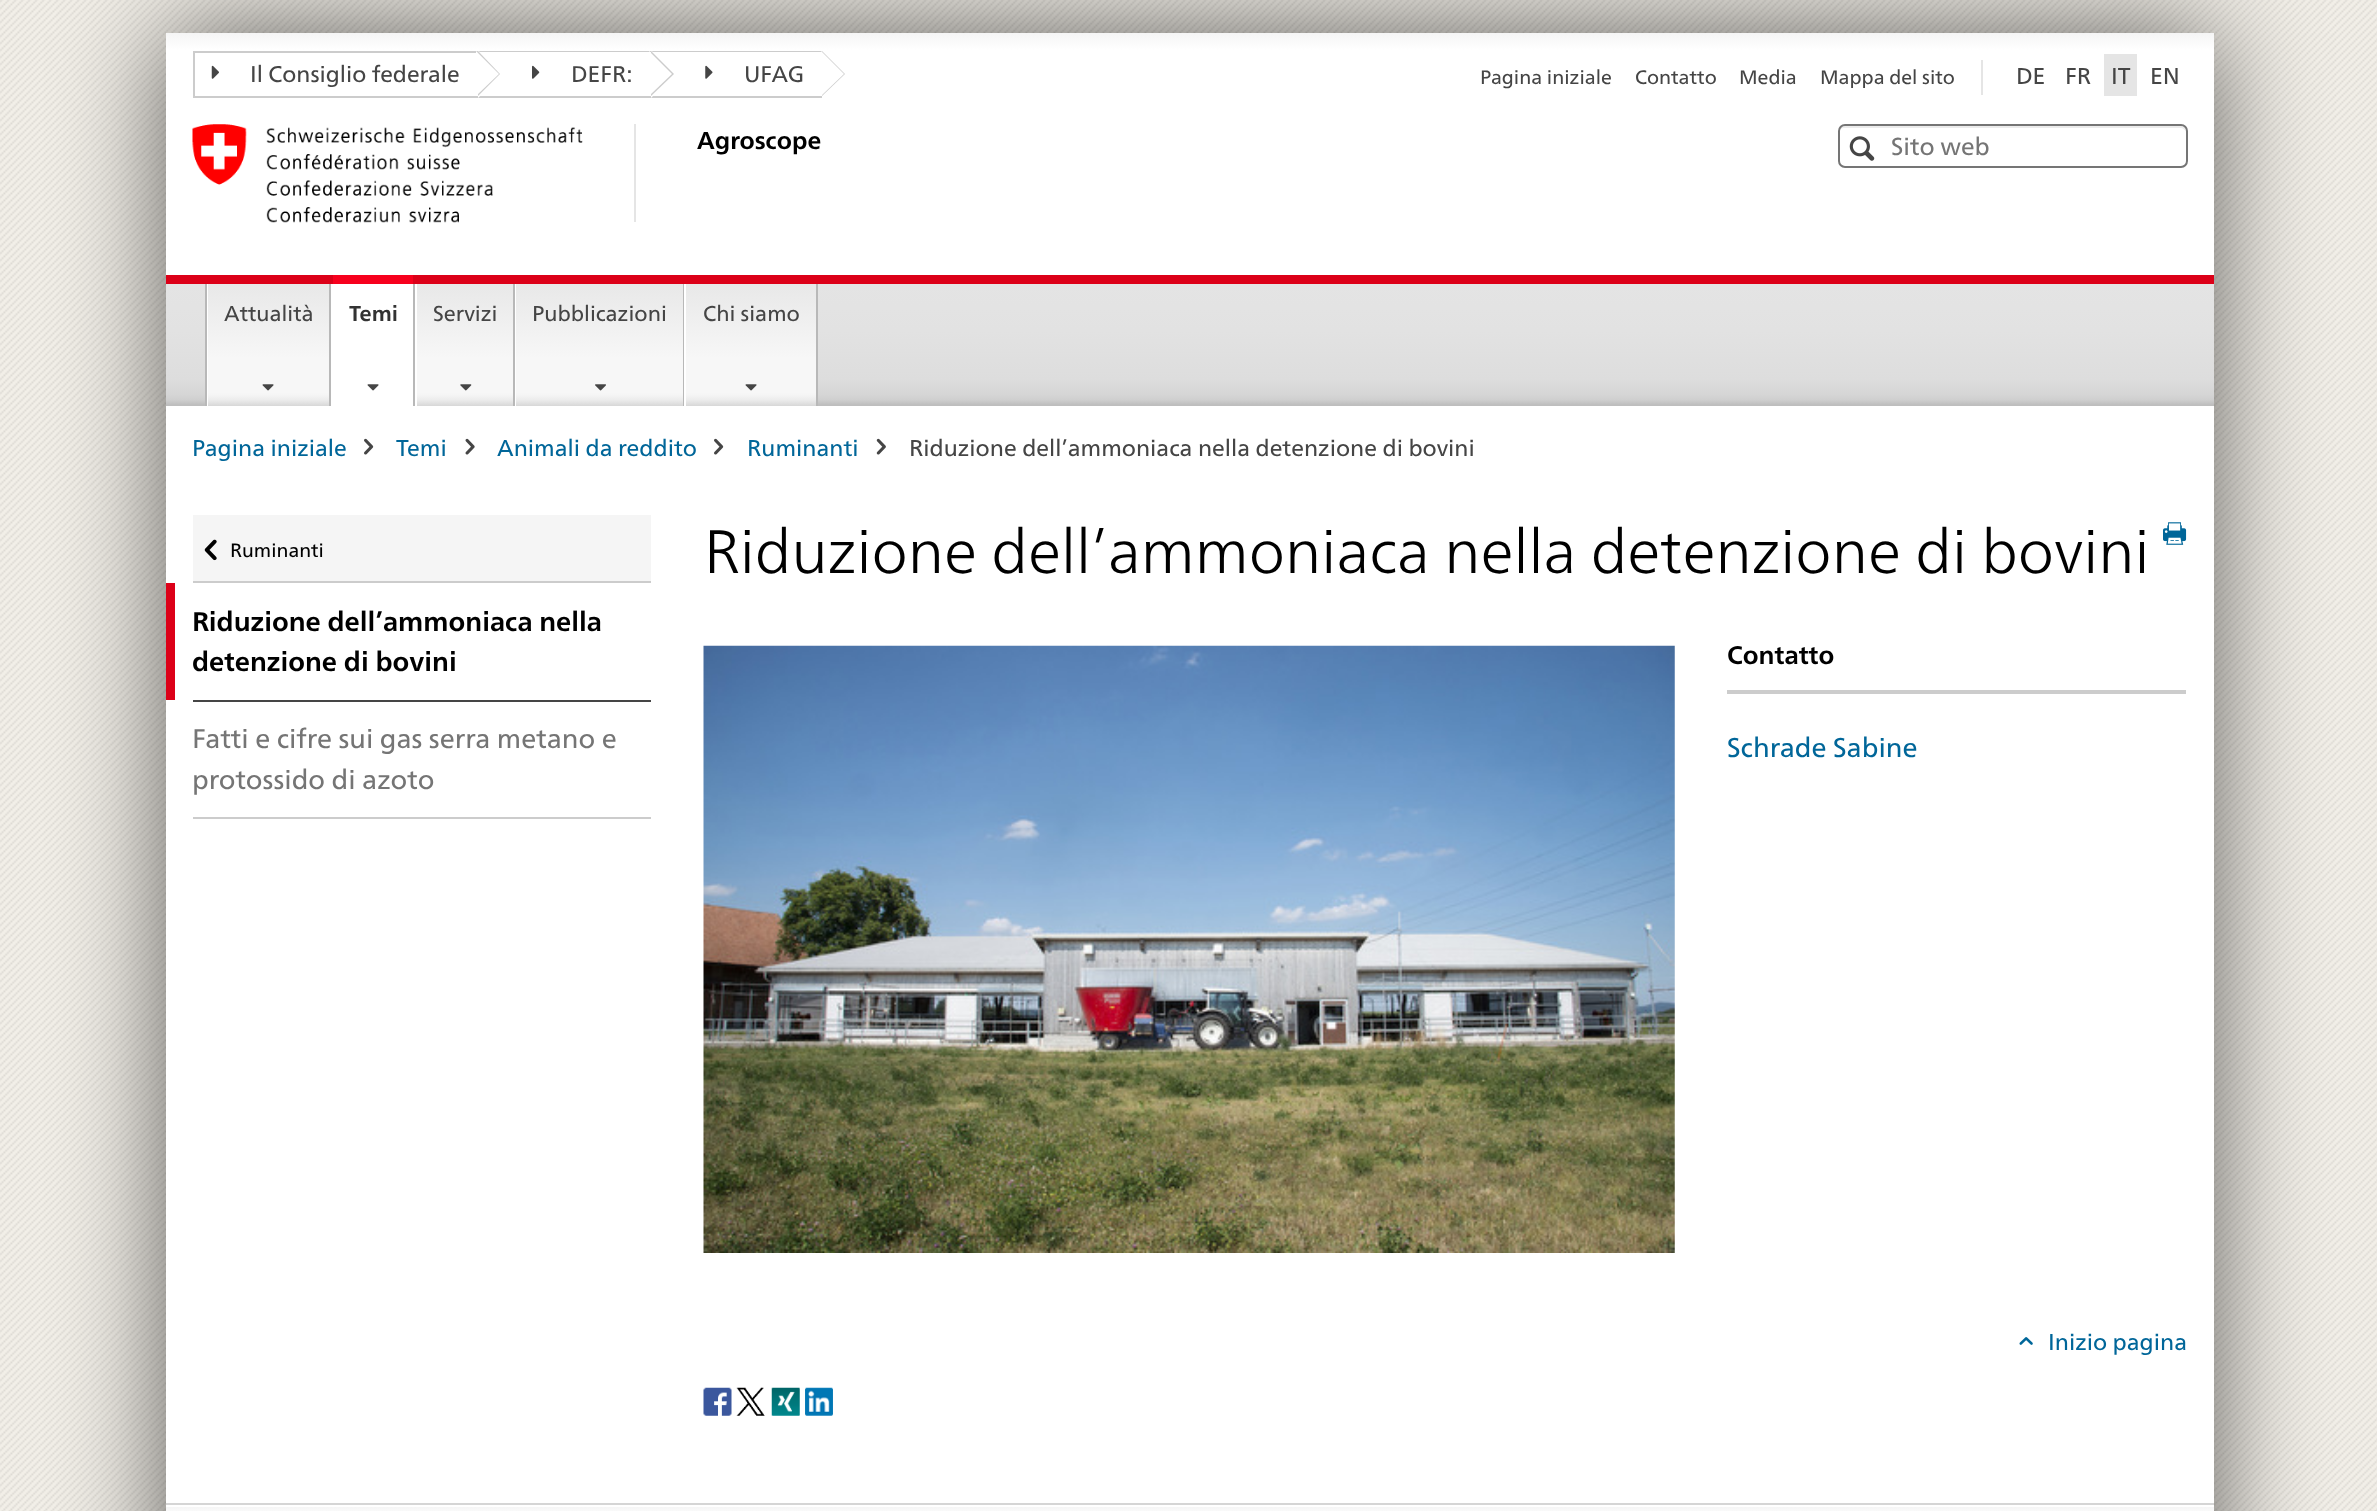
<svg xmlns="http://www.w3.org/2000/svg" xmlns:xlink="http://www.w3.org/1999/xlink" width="2377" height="1511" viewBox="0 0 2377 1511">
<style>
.cls-1{font:22.75px 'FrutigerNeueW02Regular';fill:#454545}
.cls-2{font:19.5px 'FrutigerNeueW02Regular';fill:#454545}
.cls-3{font:22.9px 'FrutigerNeueW02Regular';fill:#454545}
.cls-4{font:bold 24.5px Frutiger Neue;fill:#000000}
.cls-5{font:24.5px 'FrutigerNeueW02Regular';fill:#757575}
.cls-6{font:21.5px 'FrutigerNeueW02Regular';fill:#454545}
.cls-7{font:bold 21.5px Frutiger Neue;fill:#333333}
.cls-8{font:22.9px 'FrutigerNeueW02Regular';fill:#006699}
.cls-9{font:19.25px 'FrutigerNeueW02Regular';fill:#000000}
.cls-10{font:bold 27px Frutiger Neue;fill:#000000}
.cls-11{font:27px 'FrutigerNeueW02Regular';fill:#757575}
.cls-12{font:300 61.25px Frutiger Neue;fill:#000000}
.cls-13{font:bold 25.5px Frutiger Neue;fill:#000000}
.cls-14{font:27px 'FrutigerNeueW02Regular';fill:#006699}
</style>
<defs>
<linearGradient id="g1" gradientUnits="userSpaceOnUse" x1="1190" y1="33" x2="1190" y2="275"><stop offset="0" stop-color="#f5f5f5"/><stop offset="0.07" stop-color="#ffffff"/><stop offset="1" stop-color="#ffffff"/></linearGradient>
<linearGradient id="g2" gradientUnits="userSpaceOnUse" x1="1190" y1="283" x2="1190" y2="406"><stop offset="0" stop-color="#e4e4e4"/><stop offset="0.39" stop-color="#e2e2e2"/><stop offset="0.79" stop-color="#dddddd"/><stop offset="0.91" stop-color="#d5d5d5"/><stop offset="0.95" stop-color="#cfcfcf"/><stop offset="0.99" stop-color="#bebebe"/></linearGradient>
<linearGradient id="g3" gradientUnits="userSpaceOnUse" x1="269" y1="284" x2="269" y2="406"><stop offset="0" stop-color="#e8e8e8"/><stop offset="0.61" stop-color="#f7f7f7"/><stop offset="0.89" stop-color="#f7f7f7"/><stop offset="0.91" stop-color="#f5f5f5"/><stop offset="0.95" stop-color="#ececec"/><stop offset="1" stop-color="#d7d7d7"/></linearGradient>
<linearGradient id="g4" gradientUnits="userSpaceOnUse" x1="465" y1="284" x2="465" y2="406"><stop offset="0" stop-color="#e8e8e8"/><stop offset="0.61" stop-color="#f7f7f7"/><stop offset="0.89" stop-color="#f7f7f7"/><stop offset="0.91" stop-color="#f5f5f5"/><stop offset="0.95" stop-color="#ececec"/><stop offset="1" stop-color="#d7d7d7"/></linearGradient>
<linearGradient id="g5" gradientUnits="userSpaceOnUse" x1="599" y1="284" x2="599" y2="406"><stop offset="0" stop-color="#e8e8e8"/><stop offset="0.61" stop-color="#f7f7f7"/><stop offset="0.89" stop-color="#f7f7f7"/><stop offset="0.91" stop-color="#f5f5f5"/><stop offset="0.95" stop-color="#ececec"/><stop offset="1" stop-color="#d7d7d7"/></linearGradient>
<linearGradient id="g6" gradientUnits="userSpaceOnUse" x1="751" y1="284" x2="751" y2="406"><stop offset="0" stop-color="#e8e8e8"/><stop offset="0.61" stop-color="#f7f7f7"/><stop offset="0.89" stop-color="#f7f7f7"/><stop offset="0.91" stop-color="#f5f5f5"/><stop offset="0.95" stop-color="#ececec"/><stop offset="1" stop-color="#d7d7d7"/></linearGradient>
<linearGradient id="g7" gradientUnits="userSpaceOnUse" x1="1190" y1="1353" x2="1190" y2="1507"><stop offset="0" stop-color="#f5f5f5"/><stop offset="0.06" stop-color="#ffffff"/></linearGradient>
<linearGradient id="g8" gradientUnits="userSpaceOnUse" x1="1190" y1="1507" x2="1190" y2="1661"><stop offset="0" stop-color="#f5f5f5"/><stop offset="0.06" stop-color="#ffffff"/></linearGradient>
</defs>
<rect width="100%" height="100%" fill="#ffffff"/>
<image xlink:href="image0.png" x="0" y="0" width="2377" height="1511"/>
<rect fill="#000000" fill-opacity="0.6" filter="blur(52.5px)" x="166" y="33" width="2048" height="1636"/>
<rect fill="#ffffff" x="166" y="406" width="2048" height="1097"/>
<rect fill="url(#g1)" x="166" y="33" width="2048" height="242"/>
<rect fill="#cccccc" x="193" y="51" width="285" height="2"/>
<rect fill="#cccccc" x="193" y="96" width="285" height="2"/>
<rect fill="#cccccc" x="193" y="51" width="2" height="47"/>
<path fill="#cccccc" d="M478 96V51L500 74Z"/>
<path fill="#ffffff" d="M476 96V51L499 74Z"/>
<image xlink:href="image1.png" x="211" y="65" width="8" height="14"/>
<path fill="#cccccc" d="M478 51H651V52H480Z"/>
<path fill="#cccccc" d="M651 98H478L480 96H651Z"/>
<path fill="#cccccc" d="M651 96V51L674 74Z"/>
<path fill="#ffffff" d="M649 96V51L672 74Z"/>
<image xlink:href="image2.png" x="532" y="65" width="8" height="14"/>
<path fill="#cccccc" d="M651 51H822V52H653Z"/>
<path fill="#cccccc" d="M822 98H651L653 96H822Z"/>
<path fill="#cccccc" d="M822 96V51L845 74Z"/>
<path fill="#ffffff" d="M821 96V51L844 74Z"/>
<image xlink:href="image3.png" x="705" y="65" width="8" height="14"/>
<rect fill="#e5e5e5" x="1981" y="60" width="2" height="35"/>
<rect fill="#e5e5e5" x="2104" y="54" width="33" height="42"/>
<rect fill="#e5e5e5" x="634" y="124" width="2" height="98"/>
<image xlink:href="image4.png" x="192" y="124" width="391" height="99"/>
<path fill="#ececec" d="M1844 128H2180C2183 128 2186 130 2186 133C2186 130 2185 126 2181 126H1844C1840 126 1839 130 1839 133C1839 130 1842 128 1844 128Z"/>
<rect fill="none" stroke="#757575" stroke-width="2" x="1839" y="125" width="348" height="42" rx="6"/>
<image xlink:href="image5.png" x="1849" y="136" width="26" height="25"/>
<rect fill="url(#g2)" x="166" y="284" width="2048" height="122"/>
<rect fill="#dc0018" x="166" y="275" width="2048" height="9"/>
<rect fill="#b8b8b8" x="205" y="284" width="2" height="122"/>
<rect fill="#b8b8b8" x="329" y="284" width="2" height="122"/>
<rect fill="#ffffff" x="207" y="284" width="1" height="122"/>
<rect fill="url(#g3)" x="208" y="284" width="121" height="122"/>
<image xlink:href="image6.png" x="262" y="384" width="12" height="7"/>
<rect fill="#b8b8b8" x="413" y="284" width="2" height="122"/>
<rect fill="#ffffff" x="331" y="284" width="82" height="122"/>
<rect fill="#f7001d" x="333" y="275" width="80" height="9"/>
<image xlink:href="image7.png" x="367" y="384" width="12" height="7"/>
<rect fill="#b8b8b8" x="513" y="284" width="2" height="122"/>
<rect fill="#ffffff" x="415" y="284" width="2" height="122"/>
<rect fill="url(#g4)" x="417" y="284" width="96" height="122"/>
<image xlink:href="image8.png" x="460" y="384" width="12" height="7"/>
<rect fill="#b8b8b8" x="683" y="284" width="1" height="122"/>
<rect fill="#ffffff" x="515" y="284" width="1" height="122"/>
<rect fill="url(#g5)" x="516" y="284" width="167" height="122"/>
<image xlink:href="image9.png" x="595" y="384" width="11" height="7"/>
<rect fill="#b8b8b8" x="816" y="284" width="2" height="122"/>
<rect fill="#ffffff" x="684" y="284" width="2" height="122"/>
<rect fill="url(#g6)" x="686" y="284" width="130" height="122"/>
<image xlink:href="image6.png" x="745" y="384" width="12" height="7"/>
<image xlink:href="image10.png" x="364" y="438" width="10" height="17"/>
<image xlink:href="image11.png" x="465" y="438" width="10" height="17"/>
<image xlink:href="image10.png" x="714" y="438" width="10" height="17"/>
<image xlink:href="image12.png" x="876" y="438" width="10" height="17"/>
<rect fill="#f5f5f5" x="193" y="515" width="458" height="66"/>
<rect fill="#cccccc" x="193" y="581" width="458" height="2"/>
<image xlink:href="image13.png" x="204" y="539" width="13" height="22"/>
<rect fill="#454545" x="193" y="700" width="458" height="2"/>
<rect fill="#dc0018" x="166" y="583" width="9" height="117"/>
<rect fill="#cccccc" x="193" y="817" width="458" height="2"/>
<image xlink:href="image14.png" x="2163" y="522" width="24" height="23"/>
<image xlink:href="image15.png" x="703" y="645" width="972" height="608"/>
<rect fill="#cccccc" x="1727" y="690" width="459" height="4"/>
<image xlink:href="image16.png" x="2019" y="1337" width="14" height="8"/>
<image xlink:href="image17.png" x="703" y="1387" width="29" height="29"/>
<image xlink:href="image18.png" x="736" y="1387" width="29" height="29"/>
<image xlink:href="image19.png" x="771" y="1387" width="29" height="29"/>
<image xlink:href="image20.png" x="805" y="1387" width="28" height="29"/>
<rect fill="#d5d5d5" x="166" y="1503" width="2048" height="2"/>
<rect fill="url(#g7)" x="166" y="1505" width="2048" height="2"/>
<rect fill="url(#g8)" x="166" y="1507" width="2048" height="4"/>
<text class="cls-1" x="250" y="82">Il Consiglio federale</text>
<text class="cls-1" x="571" y="82">DEFR:</text>
<text class="cls-1" x="744" y="82">UFAG</text>
<text class="cls-2" x="1480" y="84">Pagina iniziale</text>
<text class="cls-2" x="1635" y="84">Contatto</text>
<text class="cls-2" x="1739" y="84">Media</text>
<text class="cls-2" x="1820" y="84">Mappa del sito</text>
<text class="cls-3" x="2016" y="84">DE</text>
<text class="cls-3" x="2065" y="84">FR</text>
<text class="cls-3" x="2111" y="84">IT</text>
<text class="cls-3" x="2150" y="84">EN</text>
<text class="cls-4" x="697" y="149">Agroscope</text>
<text class="cls-5" x="1891" y="155">Sito web</text>
<text class="cls-6" x="224" y="321">Attualità</text>
<text class="cls-7" x="349" y="321">Temi</text>
<text class="cls-6" x="433" y="321">Servizi</text>
<text class="cls-6" x="532" y="321">Pubblicazioni</text>
<text class="cls-6" x="703" y="321">Chi siamo</text>
<text class="cls-8" x="192" y="456">Pagina iniziale</text>
<text class="cls-8" x="396" y="456">Temi</text>
<text class="cls-8" x="497" y="456">Animali da reddito</text>
<text class="cls-8" x="747" y="456">Ruminanti</text>
<text class="cls-3" x="909" y="456">Riduzione dell’ammoniaca nella detenzione di bovini</text>
<text class="cls-9" x="230" y="557">Ruminanti</text>
<text class="cls-10"><tspan x="192" y="631">Riduzione dell’ammoniaca nella</tspan><tspan x="192" y="671">detenzione di bovini</tspan></text>
<text class="cls-11"><tspan x="192" y="748">Fatti e cifre sui gas serra metano e</tspan><tspan x="192" y="789">protossido di azoto</tspan></text>
<text class="cls-12" x="704" y="573">Riduzione dell’ammoniaca nella detenzione di bovini</text>
<text class="cls-13" x="1727" y="664">Contatto</text>
<text class="cls-14" x="1727" y="757">Schrade Sabine</text>
<text class="cls-8" x="2048" y="1350">Inizio pagina</text>
</svg>
